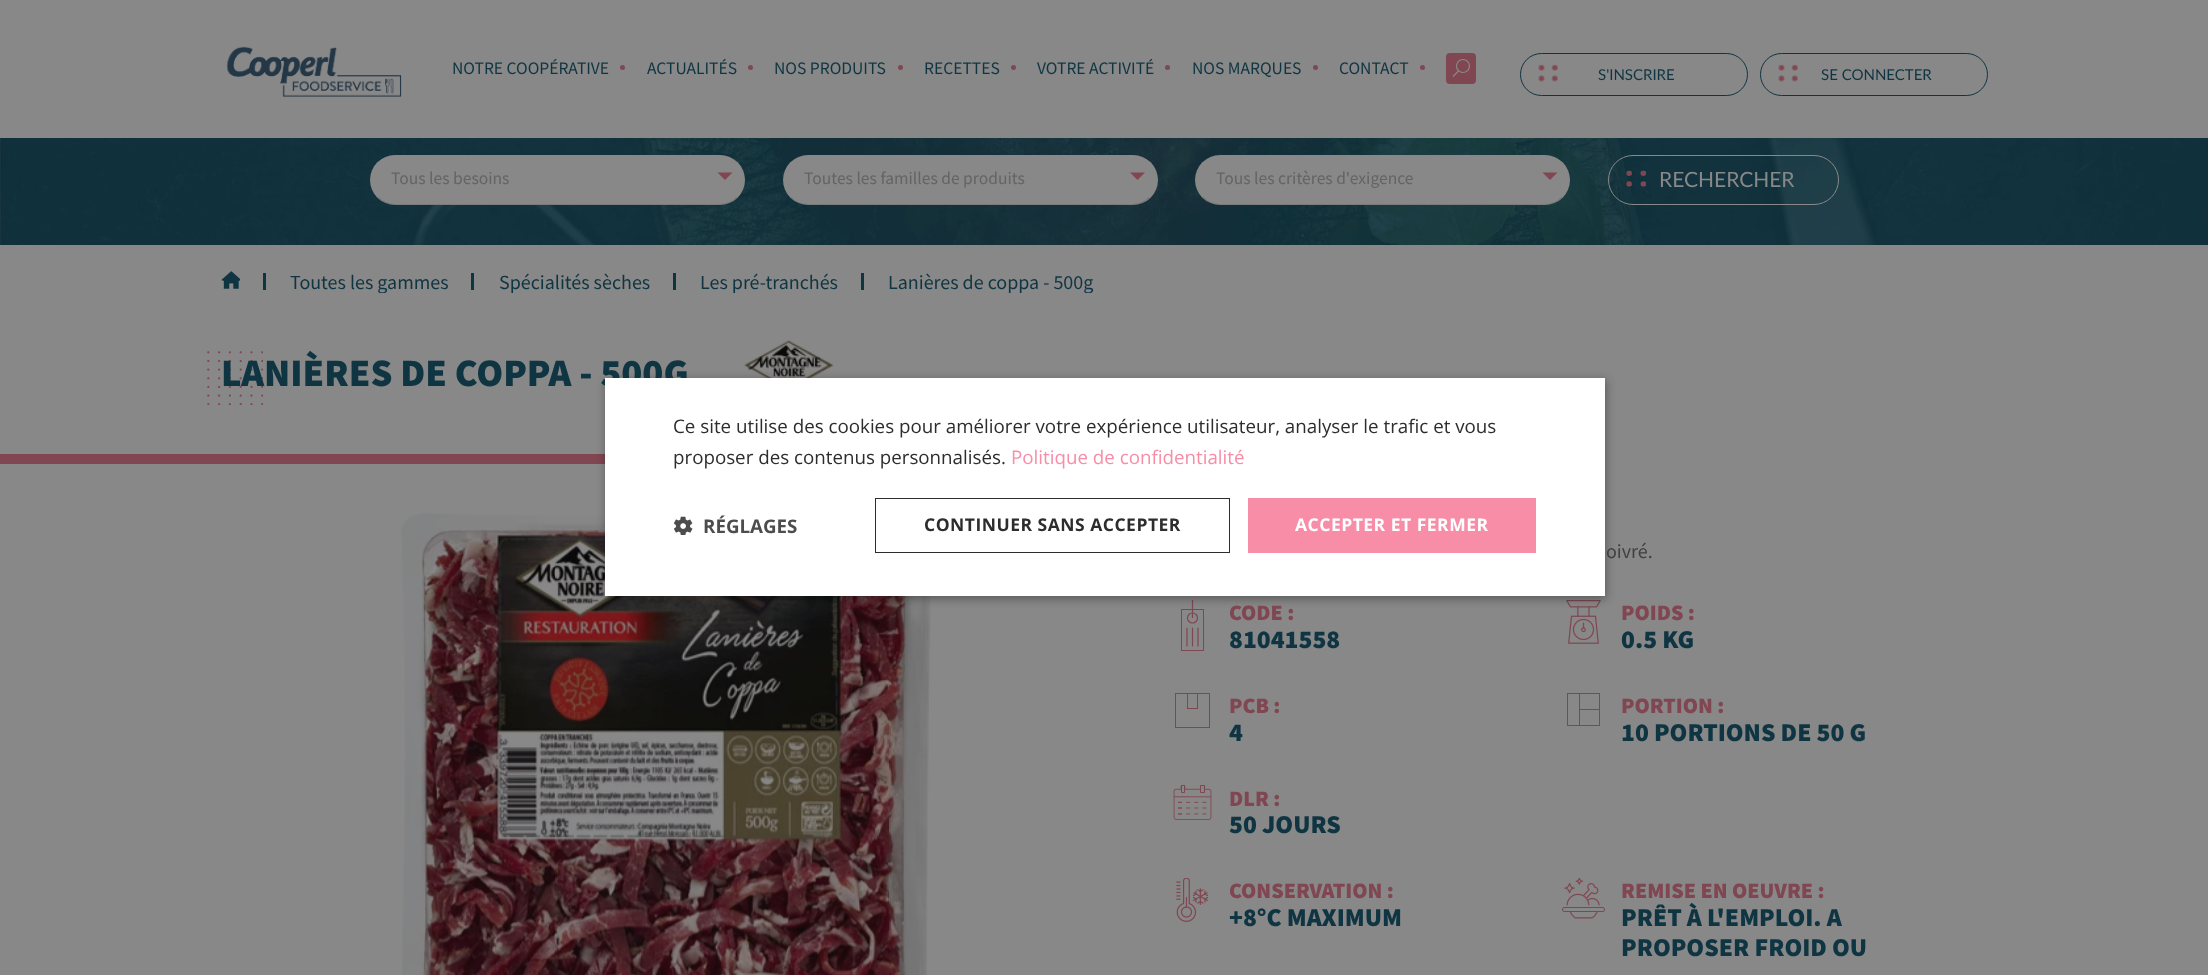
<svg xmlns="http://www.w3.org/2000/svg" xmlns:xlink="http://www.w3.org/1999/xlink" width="2208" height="975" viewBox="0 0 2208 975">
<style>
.cls-1{font:17.5px Source Sans Pro;fill:#0f3542}
.cls-2{font:15px Lato;fill:#0f3542}
.cls-3{font:17.5px Source Sans Pro;fill:#646464}
.cls-4{font:21px Lato;fill:#888888}
.cls-5{font:20px Source Sans Pro;fill:#0f3542}
.cls-6{font:900 39px Source Sans Pro;fill:#0f3542}
.cls-7{font:18.75px Open Sans;fill:#2d2d2d}
.cls-8{font:18.75px Open Sans;fill:#f78da7}
.cls-9{font:bold 18.75px Open Sans;fill:#4d4d4d}
.cls-10{font:bold 17.5px Open Sans;letter-spacing:0.5px;fill:#2d2d2d}
.cls-11{font:bold 17.5px Open Sans;letter-spacing:0.5px;fill:#ffffff}
.cls-12{font:20px Source Sans Pro;fill:#414141}
.cls-13{font:900 22.1px Source Sans Pro;fill:#804651}
.cls-14{font:900 25.75px Source Sans Pro;fill:#0f3542}
</style>
<defs>
<clipPath id="clip1"><rect x="221" y="270" width="1754" height="23"/></clipPath>
</defs>
<rect width="100%" height="100%" fill="#888888"/>
<image xlink:href="image0.png" x="226" y="46" width="176" height="51"/>
<circle fill="#804651" cx="622.5" cy="67.5" r="2.5"/>
<circle fill="#804651" cx="750.5" cy="67.5" r="2.5"/>
<circle fill="#804651" cx="900.5" cy="67.5" r="2.5"/>
<circle fill="#804651" cx="1013.5" cy="67.5" r="2.5"/>
<circle fill="#804651" cx="1167.5" cy="67.5" r="2.5"/>
<circle fill="#804651" cx="1315.5" cy="67.5" r="2.5"/>
<circle fill="#804651" cx="1422.5" cy="67.5" r="2.5"/>
<rect fill="#804651" x="1446" y="53" width="30" height="31" rx="4"/>
<circle fill="none" stroke="#888888" stroke-width="1.2" cx="1463" cy="66" r="6.5"/>
<path fill="none" stroke="#888888" stroke-width="1.2" d="M1459 70.5L1453 76.5"/>
<rect fill="none" stroke="#0f3542" x="1520.5" y="53.5" width="227" height="42" rx="21"/>
<image xlink:href="image1.png" x="1538" y="64" width="20" height="18"/>
<rect fill="none" stroke="#0f3542" x="1760.5" y="53.5" width="227" height="42" rx="21"/>
<image xlink:href="image1.png" x="1778" y="64" width="20" height="18"/>
<image xlink:href="image2.png" x="0" y="138" width="2208" height="107"/>
<rect fill="#888888" x="370" y="155" width="375" height="50" rx="25"/>
<path fill="none" stroke="#090909" stroke-opacity="0.1" stroke-width="1.2" d="M737 197C732.5 202 726.5 204.5 720 204.5H395C388.5 204.5 382.5 202 378 197"/>
<path fill="#804651" d="M717.5 172.5H732.5L725 180Z"/>
<rect fill="#888888" x="783" y="155" width="375" height="50" rx="25"/>
<path fill="none" stroke="#090909" stroke-opacity="0.1" stroke-width="1.2" d="M1149.5 197C1145 202 1139 204.5 1132.5 204.5H807.5C801 204.5 795 202 790.5 197"/>
<path fill="#804651" d="M1130 172.5H1145L1137.5 180Z"/>
<rect fill="#888888" x="1195" y="155" width="375" height="50" rx="25"/>
<path fill="none" stroke="#090909" stroke-opacity="0.1" stroke-width="1.2" d="M1562 197C1557.5 202 1551.5 204.5 1545 204.5H1220C1213.5 204.5 1207.5 202 1203 197"/>
<path fill="#804651" d="M1542.5 172.5H1557.5L1550 180Z"/>
<rect fill="none" stroke="#888888" x="1608.5" y="155.5" width="230" height="49" rx="24.5"/>
<image xlink:href="image3.png" x="1626" y="170" width="20" height="17"/>
<image xlink:href="image4.png" x="221" y="271" width="19" height="18"/>
<rect fill="#0f3542" x="263" y="273" width="3" height="17"/>
<rect fill="#0f3542" x="471" y="273" width="3" height="17"/>
<rect fill="#0f3542" x="673" y="273" width="3" height="17"/>
<rect fill="#0f3542" x="861" y="273" width="3" height="17"/>
<image xlink:href="image5.png" x="207" y="351" width="56" height="54"/>
<image xlink:href="image6.png" x="744" y="340" width="90" height="38"/>
<rect fill="#804651" x="0" y="454" width="605" height="10"/>
<image xlink:href="image8.png" x="401" y="513" width="530" height="462"/>
<rect fill="none" stroke="#804651" x="1181.5" y="609.5" width="22" height="41"/>
<circle fill="none" stroke="#804651" stroke-width="1.2" cx="1192.5" cy="618" r="5"/>
<path fill="none" stroke="#804651" stroke-width="1.2" stroke-linecap="round" stroke-linejoin="round" d="M1192.5 617.5V600.5"/>
<image xlink:href="image9.png" x="1566" y="600" width="35" height="44"/>
<rect fill="#000000" fill-opacity="0.35" filter="blur(5px)" x="606" y="380" width="1000" height="219"/>
<path fill="none" stroke="#804651" stroke-width="1.2" stroke-linecap="round" stroke-linejoin="round" d="M1187 646V628M1192.5 646V628M1198 646V628"/>
<rect fill="none" stroke="#804651" x="1175.5" y="693.5" width="34" height="34"/>
<rect fill="none" stroke="#804651" x="1187.5" y="693.5" width="10" height="15"/>
<rect fill="none" stroke="#804651" x="1567.5" y="693.5" width="32" height="32"/>
<rect fill="#804651" x="1579" y="694" width="1" height="32"/>
<rect fill="#804651" x="1580" y="709" width="20" height="1"/>
<image xlink:href="image10.png" x="1173" y="785" width="39" height="35"/>
<image xlink:href="image11.png" x="1176" y="878" width="33" height="44"/>
<image xlink:href="image12.png" x="1562" y="878" width="43" height="41"/>
<text class="cls-1" x="452" y="74">NOTRE COOPÉRATIVE</text>
<text class="cls-1" x="647" y="74">ACTUALITÉS</text>
<text class="cls-1" x="774" y="74">NOS PRODUITS</text>
<text class="cls-1" x="924" y="74">RECETTES</text>
<text class="cls-1" x="1037" y="74">VOTRE ACTIVITÉ</text>
<text class="cls-1" x="1192" y="74">NOS MARQUES</text>
<text class="cls-1" x="1339" y="74">CONTACT</text>
<text class="cls-2" x="1598" y="80">S'INSCRIRE</text>
<text class="cls-2" x="1821" y="80">SE CONNECTER</text>
<text class="cls-3" x="391" y="184">Tous les besoins</text>
<text class="cls-3" x="804" y="184">Toutes les familles de produits</text>
<text class="cls-3" x="1216" y="184">Tous les critères d'exigence</text>
<text class="cls-4" x="1659" y="187">RECHERCHER</text>
<g clip-path="url(#clip1)">
<text class="cls-5" x="290" y="289">Toutes les gammes</text>
</g>
<text class="cls-5" x="499" y="289">Spécialités sèches</text>
<text class="cls-5" x="700" y="289">Les pré-tranchés</text>
<g clip-path="url(#clip1)">
<text class="cls-5" x="888" y="289">Lanières de coppa - 500g</text>
</g>
<text class="cls-6" x="221" y="386">LANIÈRES DE COPPA - 500G</text>
<rect fill="#ffffff" x="605" y="378" width="1000" height="218"/>
<text class="cls-7"><tspan x="673" y="433">Ce site utilise des cookies pour améliorer votre expérience utilisateur, analyser le trafic et vous</tspan><tspan x="673" y="464">proposer des contenus personnalisés.</tspan></text>
<text class="cls-8" x="1011" y="464">Politique de confidentialité</text>
<image xlink:href="image7.png" x="674" y="516" width="19" height="19"/>
<text class="cls-9" x="703" y="533">RÉGLAGES</text>
<rect fill="none" stroke="#2d2d2d" x="875.5" y="498.5" width="354" height="54"/>
<text class="cls-10" x="924" y="531">CONTINUER SANS ACCEPTER</text>
<rect fill="#f78da7" x="1248" y="498" width="288" height="55"/>
<text class="cls-11" x="1295" y="531">ACCEPTER ET FERMER</text>
<text class="cls-12" x="1606" y="558">oivré.</text>
<text class="cls-13" x="1229" y="620">CODE :</text>
<text class="cls-14" x="1229" y="648">81041558</text>
<text class="cls-13" x="1621" y="620">POIDS :</text>
<text class="cls-14" x="1621" y="648">0.5 KG</text>
<text class="cls-13" x="1229" y="713">PCB :</text>
<text class="cls-14" x="1229" y="741">4</text>
<text class="cls-13" x="1621" y="713">PORTION :</text>
<text class="cls-14" x="1621" y="741">10 PORTIONS DE 50 G</text>
<text class="cls-13" x="1229" y="806">DLR :</text>
<text class="cls-14" x="1229" y="833">50 JOURS</text>
<text class="cls-13" x="1229" y="898">CONSERVATION :</text>
<text class="cls-14" x="1229" y="926">+8°C MAXIMUM</text>
<text class="cls-13" x="1621" y="898">REMISE EN OEUVRE :</text>
<text class="cls-14"><tspan x="1621" y="926">PRÊT À L'EMPLOI. A</tspan><tspan x="1621" y="956">PROPOSER FROID OU</tspan></text>
</svg>
